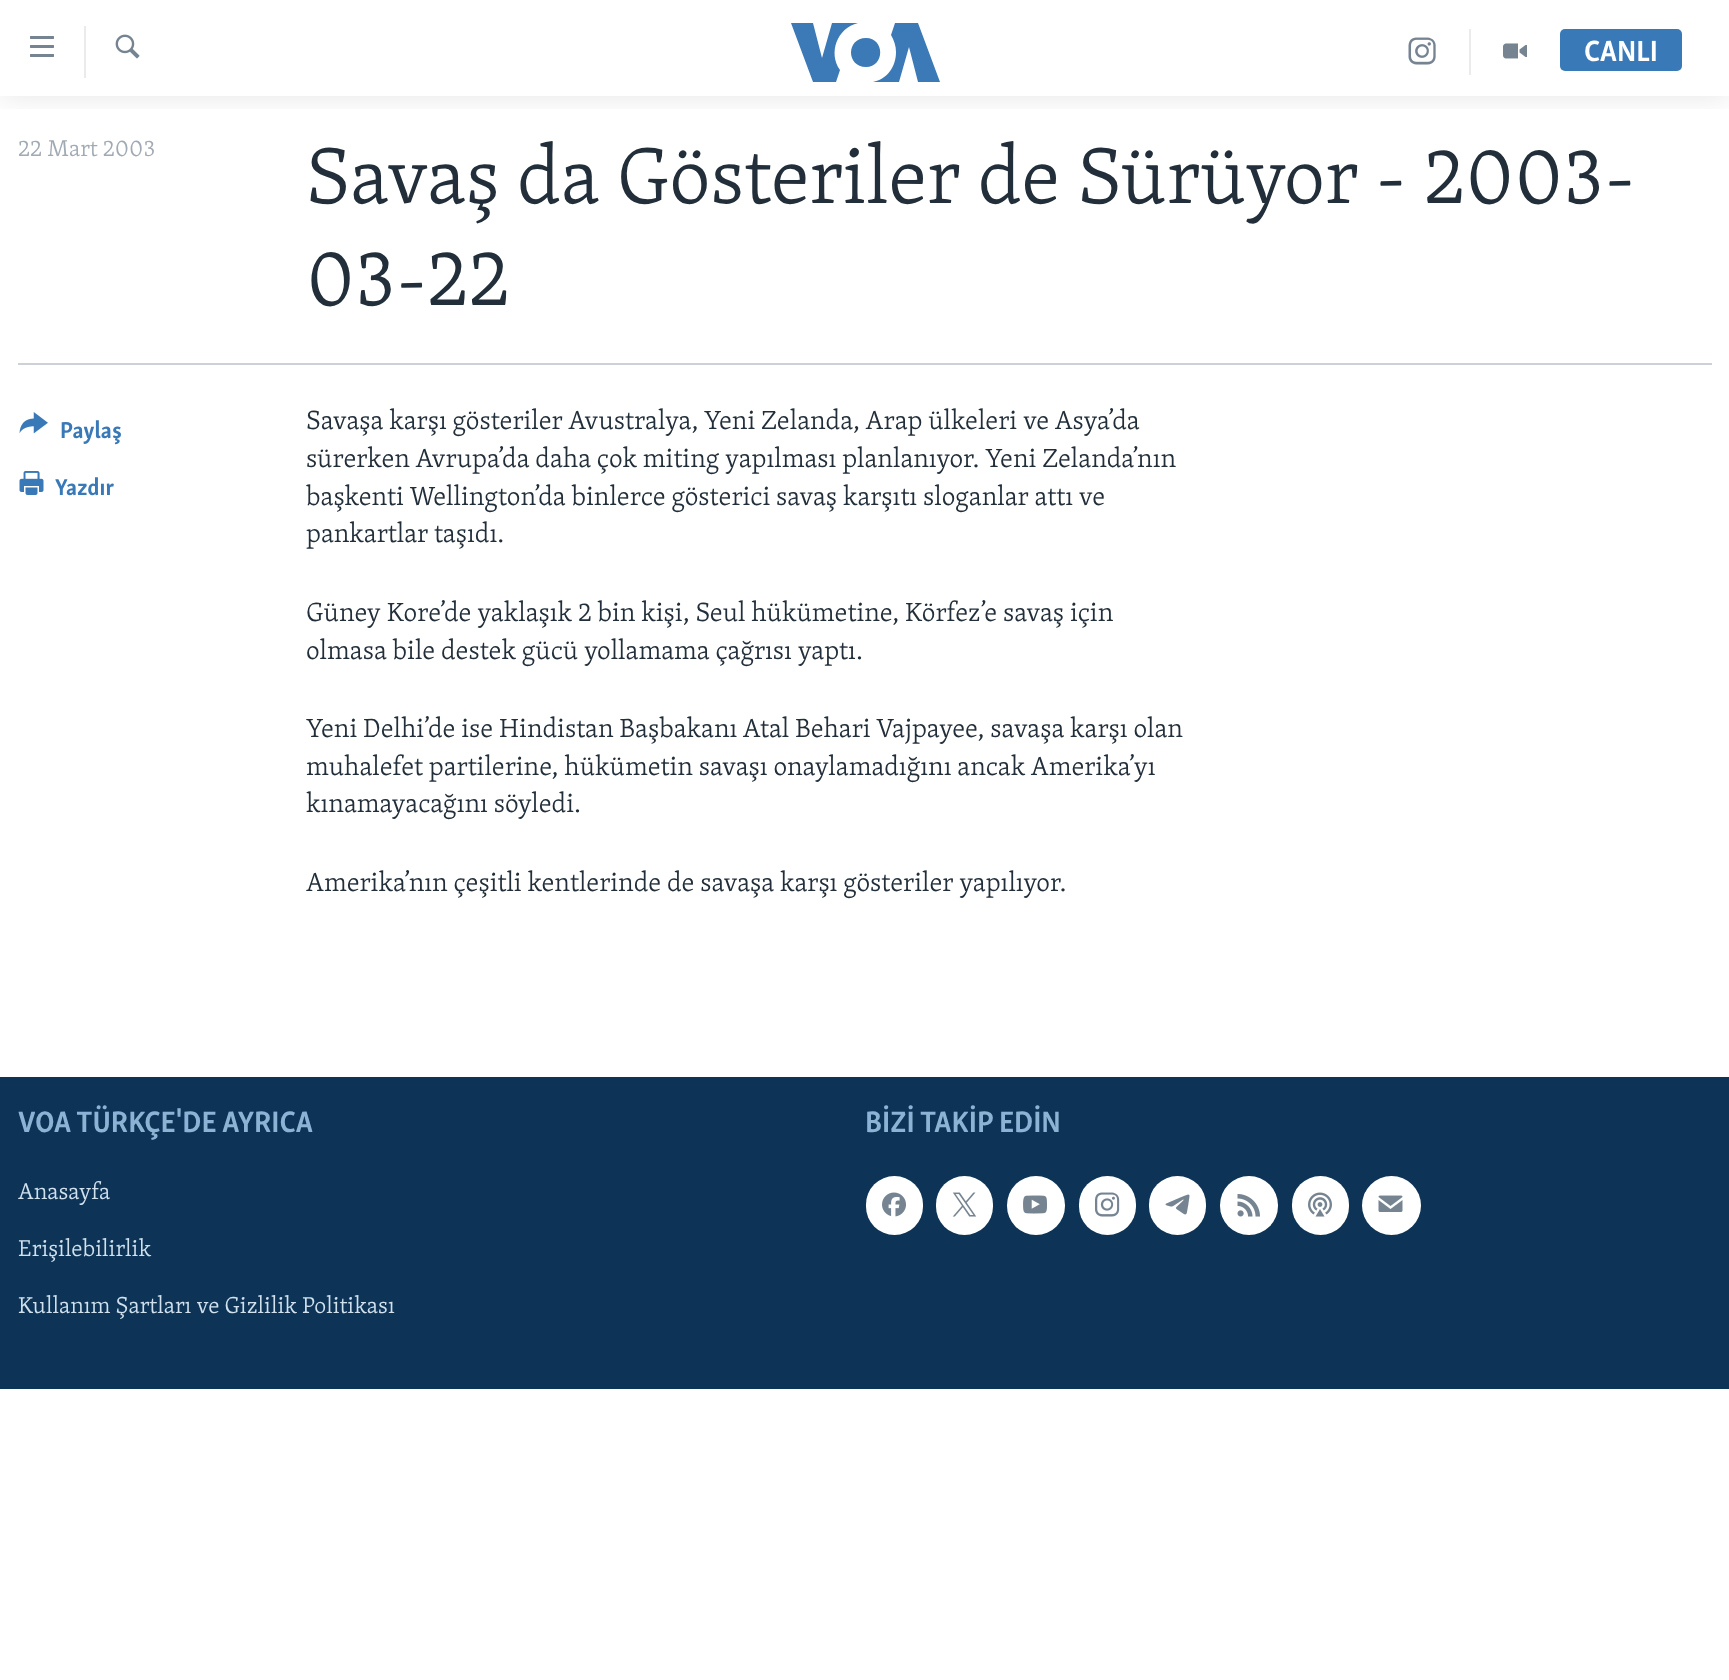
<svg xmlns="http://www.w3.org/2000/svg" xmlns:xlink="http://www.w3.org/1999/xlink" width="1729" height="1680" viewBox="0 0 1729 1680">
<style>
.cls-1{font:bold 30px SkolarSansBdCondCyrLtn;fill:#ffffff}
.cls-2{font:300 23.6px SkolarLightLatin;fill:#a1aab4}
.cls-3{font:300 81px SkolarLightLatin;fill:#222f3a}
.cls-4{font:bold 23.6px SkolarSansBdCondCyrLtn;fill:#3a79b7}
.cls-5{font:300 27px SkolarLightLatin;fill:#222f3a}
.cls-6{font:bold 30.4px SkolarSansBdCondCyrLtn;fill:#8db3d4}
.cls-7{font:300 23.6px SkolarLightLatin;fill:#d1e1ee}
</style>
<defs>
<clipPath id="clip1"><rect x="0" y="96" width="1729" height="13"/></clipPath>
</defs>
<rect width="100%" height="100%" fill="#ffffff"/>
<g clip-path="url(#clip1)">
<rect fill="#000000" fill-opacity="0.1" filter="blur(15px)" x="0" y="0" width="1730" height="96"/>
</g>
<image xlink:href="image0.png" x="30" y="36" width="24" height="21"/>
<rect fill="#ebebeb" x="84" y="26" width="2" height="52"/>
<image xlink:href="image1.png" x="115" y="34" width="25" height="25"/>
<path fill="#3b79b7" d="M840 70L836 82H813L791 23H813L822 58L832 23H858C837 28 828 53 840 70ZM866 38C846 38 846 67 866 67C885 67 885 38 866 38ZM896 52C896 67 887 79 873 82H899L909 47L918 82H940L918 23H895L891 35C894 40 896 46 896 52Z"/>
<rect fill="#ebebeb" x="1469" y="29" width="2" height="46"/>
<image xlink:href="image2.png" x="1408" y="37" width="28" height="28"/>
<image xlink:href="image3.png" x="1503" y="43" width="24" height="16"/>
<rect fill="#3a79b7" x="1560" y="29" width="122" height="42" rx="5"/>
<rect fill="#cbd1d6" x="18" y="363" width="1694" height="2"/>
<image xlink:href="image4.png" x="19" y="412" width="29" height="22"/>
<image xlink:href="image5.png" x="19" y="471" width="25" height="24"/>
<rect fill="#0d3456" x="0" y="1077" width="1729" height="312"/>
<rect fill="#ffffff" x="866" y="1176" width="57" height="59" rx="28.5"/>
<image xlink:href="image6.png" x="882" y="1192" width="24" height="25"/>
<rect fill="#ffffff" x="936" y="1176" width="57" height="59" rx="28.5"/>
<image xlink:href="image7.png" x="952" y="1192" width="25" height="25"/>
<rect fill="#ffffff" x="1007" y="1176" width="58" height="59" rx="29"/>
<image xlink:href="image8.png" x="1023" y="1195" width="24" height="19"/>
<rect fill="#ffffff" x="1079" y="1176" width="57" height="59" rx="28.5"/>
<image xlink:href="image9.png" x="1095" y="1192" width="25" height="25"/>
<rect fill="#ffffff" x="1149" y="1176" width="57" height="59" rx="28.5"/>
<image xlink:href="image10.png" x="1165" y="1194" width="25" height="21"/>
<rect fill="#ffffff" x="1220" y="1176" width="58" height="59" rx="29"/>
<image xlink:href="image11.png" x="1237" y="1194" width="23" height="23"/>
<rect fill="#ffffff" x="1292" y="1176" width="57" height="59" rx="28.5"/>
<image xlink:href="image12.png" x="1308" y="1192" width="24" height="25"/>
<circle fill="#ffffff" cx="1391.5" cy="1205.5" r="29.5"/>
<image xlink:href="image13.png" x="1378" y="1195" width="25" height="17"/>
<text class="cls-1" x="1584" y="61">CANLI</text>
<text class="cls-2" x="18" y="156">22 Mart 2003</text>
<text class="cls-3"><tspan x="306" y="203">Savaş da Gösteriler de Sürüyor - 2003-</tspan><tspan x="306" y="305">03-22</tspan></text>
<text class="cls-4" x="60" y="438">Paylaş</text>
<text class="cls-4" x="55" y="495">Yazdır</text>
<text class="cls-5"><tspan x="306" y="429">Savaşa karşı gösteriler Avustralya, Yeni Zelanda, Arap ülkeleri ve Asya’da</tspan><tspan x="306" y="467">sürerken Avrupa’da daha çok miting yapılması planlanıyor. Yeni Zelanda’nın</tspan><tspan x="306" y="505">başkenti Wellington’da binlerce gösterici savaş karşıtı sloganlar attı ve</tspan><tspan x="306" y="542">pankartlar taşıdı.</tspan></text>
<text class="cls-5"><tspan x="306" y="621">Güney Kore’de yaklaşık 2 bin kişi, Seul hükümetine, Körfez’e savaş için</tspan><tspan x="306" y="659">olmasa bile destek gücü yollamama çağrısı yaptı.</tspan></text>
<text class="cls-5"><tspan x="306" y="737">Yeni Delhi’de ise Hindistan Başbakanı Atal Behari Vajpayee, savaşa karşı olan</tspan><tspan x="306" y="775">muhalefet partilerine, hükümetin savaşı onaylamadığını ancak Amerika’yı</tspan><tspan x="306" y="812">kınamayacağını söyledi.</tspan></text>
<text class="cls-5" x="306" y="891">Amerika’nın çeşitli kentlerinde de savaşa karşı gösteriler yapılıyor.</text>
<text class="cls-6" x="18" y="1132">VOA TÜRKÇE'DE AYRICA</text>
<text class="cls-7" x="18" y="1199">Anasayfa</text>
<text class="cls-7" x="18" y="1256">Erişilebilirlik</text>
<text class="cls-7" x="18" y="1313">Kullanım Şartları ve Gizlilik Politikası</text>
<text class="cls-6" x="865" y="1132">BİZİ TAKİP EDİN</text>
</svg>
